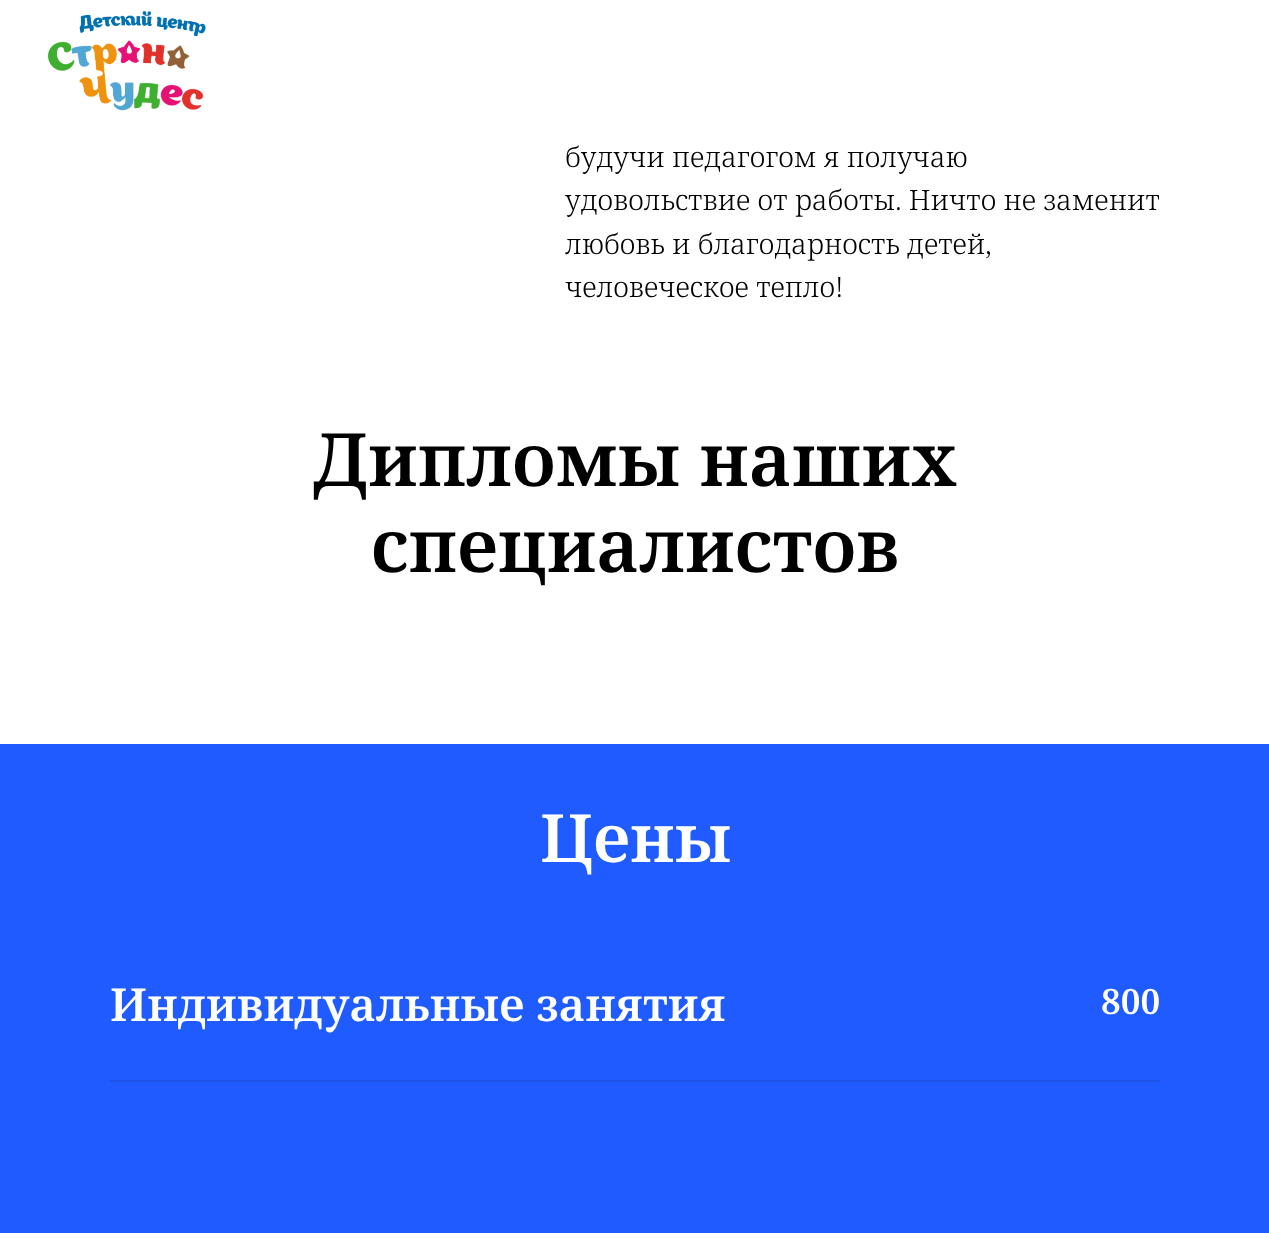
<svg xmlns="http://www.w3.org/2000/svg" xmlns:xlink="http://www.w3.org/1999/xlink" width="1269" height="1233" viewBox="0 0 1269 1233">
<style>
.cls-1{font:300 28px Noto Serif;fill:#000000}
.cls-2{font:600 73.5px Noto Serif;fill:#000000}
.cls-3{font:600 66.5px Noto Serif;fill:#ffffff}
.cls-4{font:600 45.5px Noto Serif;fill:#ffffff}
.cls-5{font:600 35px Noto Serif;fill:#ffffff}
</style>
<rect width="100%" height="100%" fill="#ffffff"/>
<image xlink:href="image0.png" x="48" y="11" width="158" height="100"/>
<rect fill="#1f5bff" x="0" y="744" width="1269" height="489"/>
<rect fill="#1c52e6" x="110" y="1080" width="1050" height="2"/>
<text class="cls-1"><tspan x="565" y="167">будучи педагогом я получаю</tspan><tspan x="565" y="210">удовольствие от работы. Ничто не заменит</tspan><tspan x="565" y="254">любовь и благодарность детей,</tspan><tspan x="565" y="297">человеческое тепло!</tspan></text>
<text class="cls-2" x="313" y="486">Дипломы наших</text>
<text class="cls-2" x="371" y="572">специалистов</text>
<text class="cls-3" x="540" y="862">Цены</text>
<text class="cls-4" x="110" y="1021">Индивидуальные занятия</text>
<text class="cls-5" x="1101" y="1014">800</text>
</svg>
